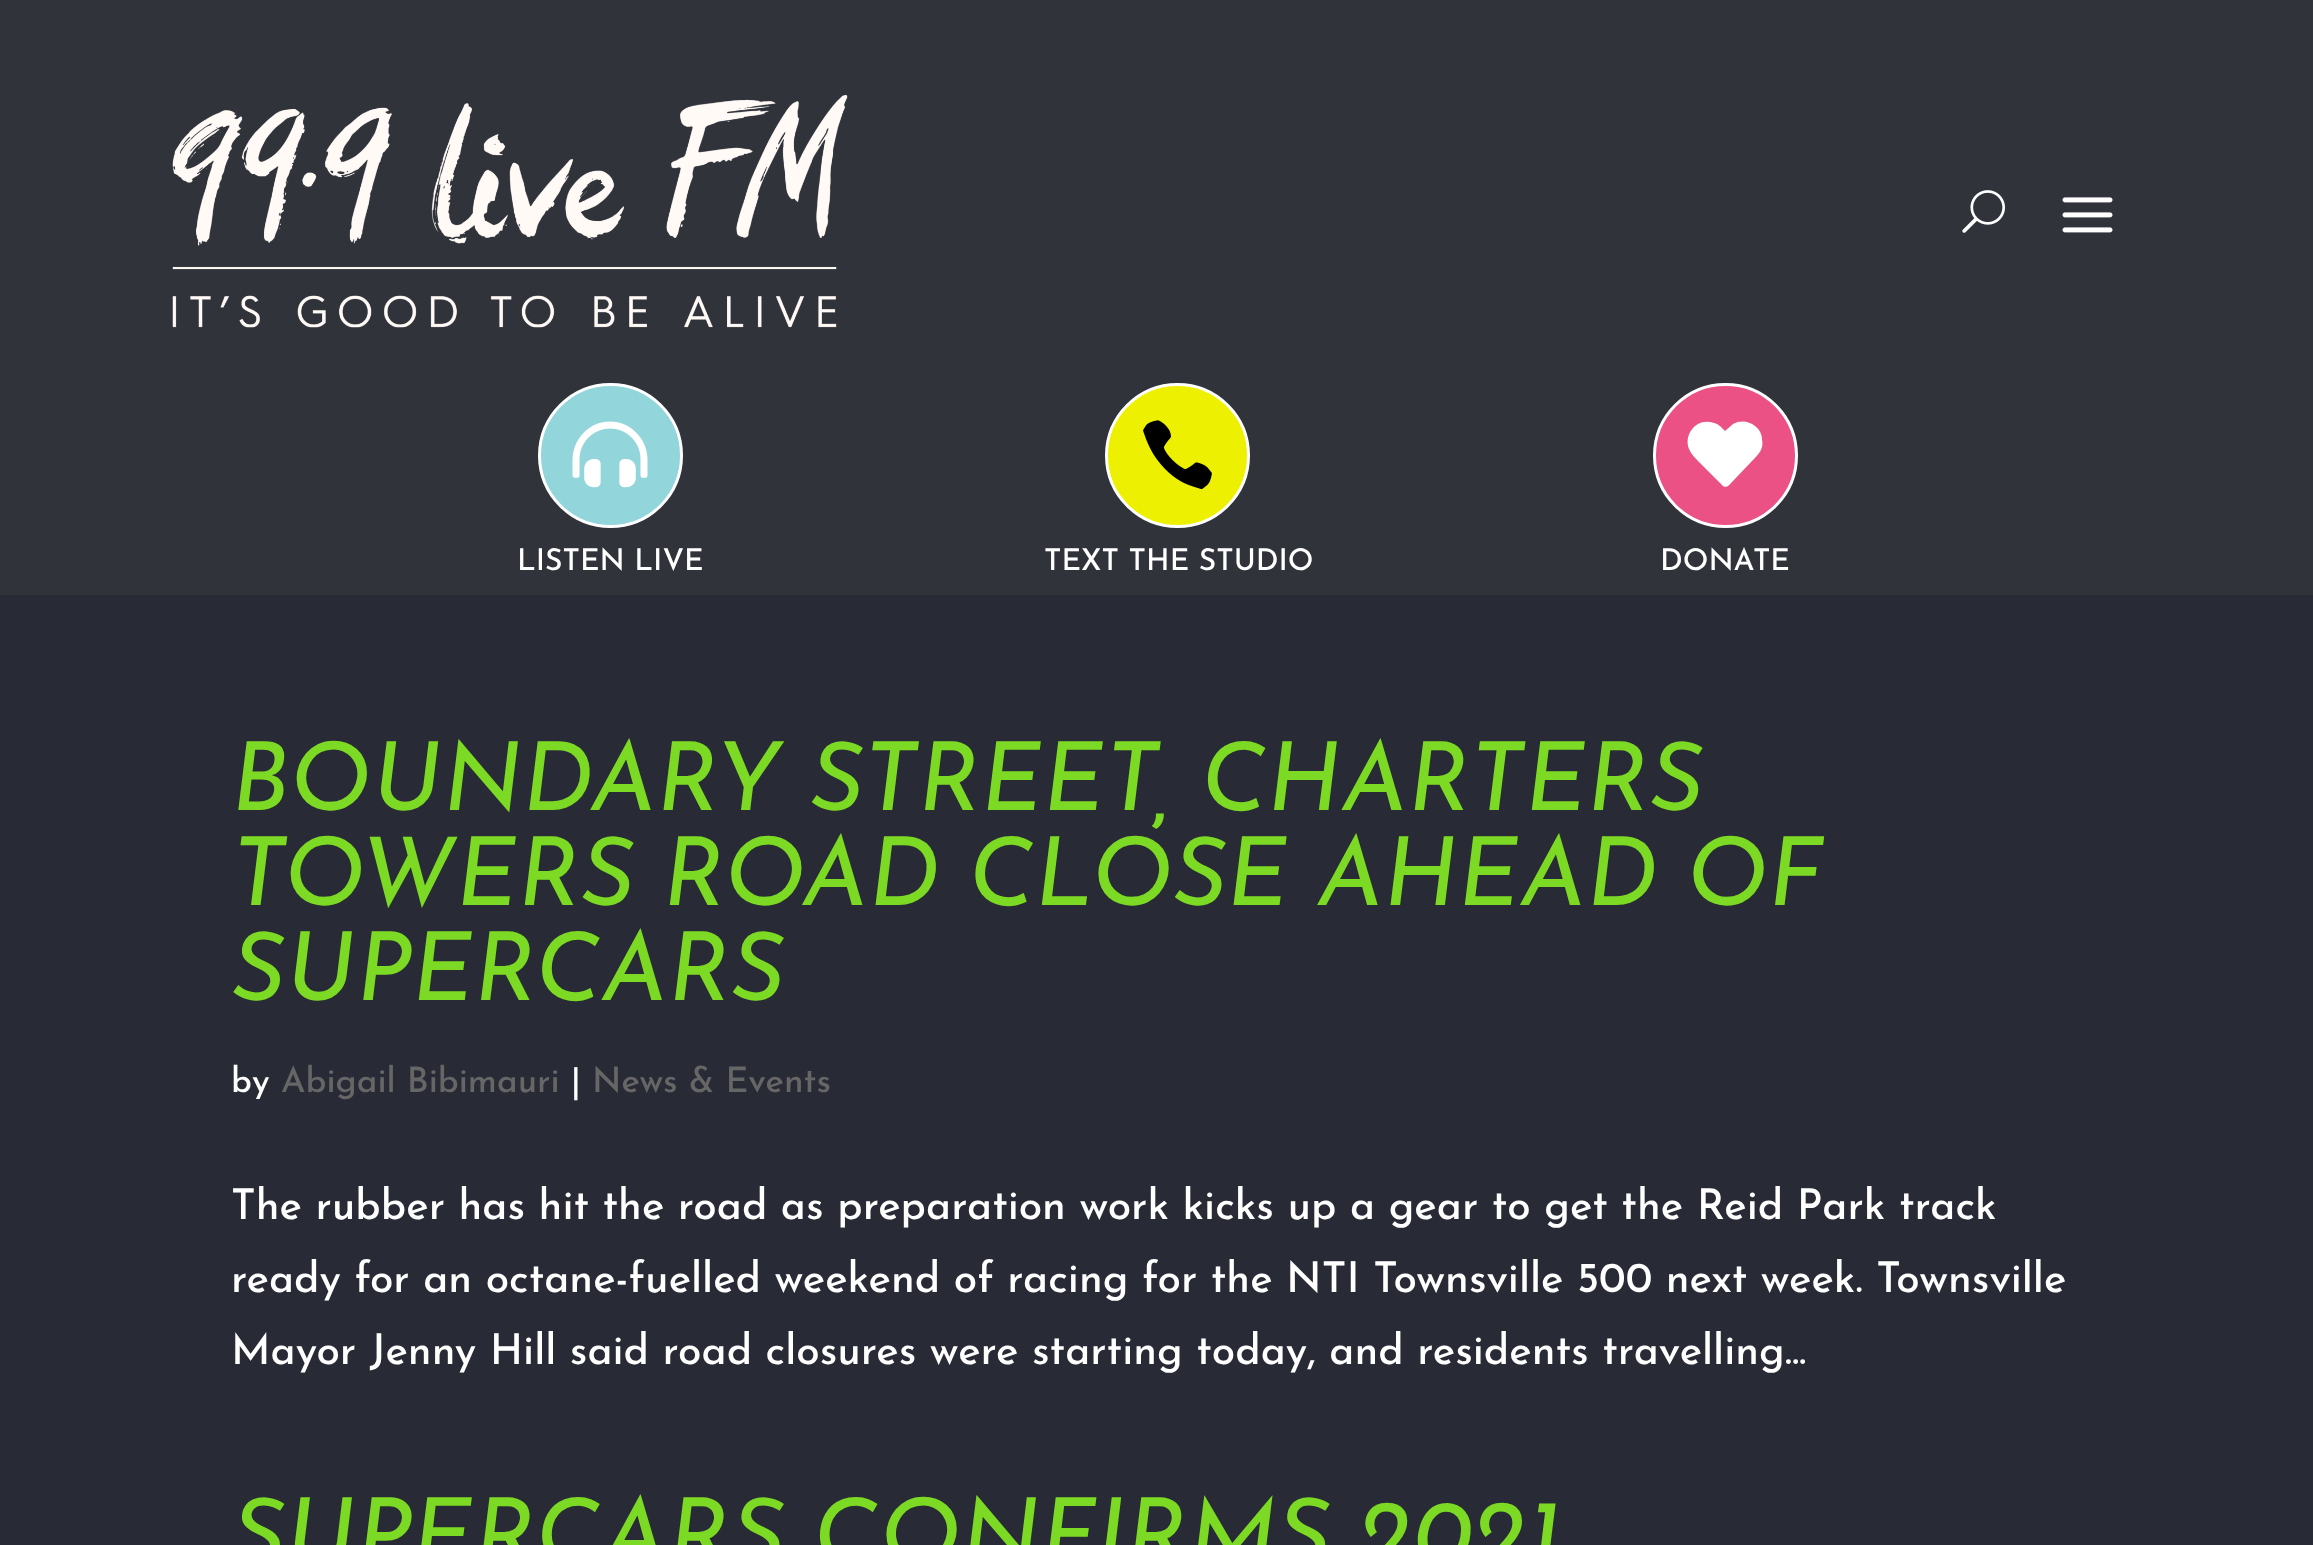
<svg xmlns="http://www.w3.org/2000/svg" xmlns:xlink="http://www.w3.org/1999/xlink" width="2313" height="1545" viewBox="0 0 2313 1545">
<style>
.cls-1{font:500 30px Josefin Sans;fill:#ffffff}
.cls-2{font:italic 95px Josefin Sans;fill:#7cda24}
.cls-3{font:500 35px Josefin Sans;fill:#ffffff}
.cls-4{font:500 35px Josefin Sans;fill:#666666}
.cls-5{font:500 42.5px Josefin Sans;fill:#ffffff}
</style>
<rect width="100%" height="100%" fill="#282b35"/>
<rect fill="#30333a" x="0" y="0" width="2313" height="595"/>
<image xlink:href="image0.png" x="172" y="95" width="676" height="233"/>
<image xlink:href="image1.png" x="1962" y="190" width="43" height="43"/>
<image xlink:href="image2.png" x="2062" y="197" width="51" height="36"/>
<circle fill="#92d5db" stroke="#ffffff" stroke-width="3" cx="610.5" cy="455.5" r="71"/>
<image xlink:href="image3.png" x="572" y="421" width="76" height="67"/>
<circle fill="#edf000" stroke="#ffffff" stroke-width="3" cx="1177.5" cy="455.5" r="71"/>
<image xlink:href="image4.png" x="1143" y="420" width="69" height="70"/>
<circle fill="#eb5184" stroke="#ffffff" stroke-width="3" cx="1725.5" cy="455.5" r="71"/>
<path fill="#ffffff" d="M1755 426C1759 429 1762 434 1762 439C1764 449 1759 454 1752 461L1733 481C1731 483 1727 489 1723 486L1698 461C1695 458 1691 454 1689 449C1683 433 1698 417 1714 423C1719 424 1722 428 1725 431L1733 424C1740 420 1749 421 1755 426Z"/>
<text class="cls-1" x="517" y="570">LISTEN LIVE</text>
<text class="cls-1" x="1044" y="570">TEXT THE STUDIO</text>
<text class="cls-1" x="1660" y="570">DONATE</text>
<text class="cls-2"><tspan x="231" y="810">BOUNDARY STREET, CHARTERS</tspan><tspan x="231" y="905">TOWERS ROAD CLOSE AHEAD OF</tspan><tspan x="231" y="1000">SUPERCARS</tspan></text>
<text class="cls-3" x="231" y="1092">by</text>
<text class="cls-4" x="281" y="1092">Abigail Bibimauri</text>
<text class="cls-3" x="571" y="1092">|</text>
<text class="cls-4" x="592" y="1092">News &amp; Events</text>
<text class="cls-5"><tspan x="231" y="1219">The rubber has hit the road as preparation work kicks up a gear to get the Reid Park track</tspan><tspan x="231" y="1292">ready for an octane-fuelled weekend of racing for the NTI Townsville 500 next week. Townsville</tspan><tspan x="231" y="1364">Mayor Jenny Hill said road closures were starting today, and residents travelling...</tspan></text>
<text class="cls-2" x="231" y="1566">SUPERCARS CONFIRMS 2021</text>
</svg>
